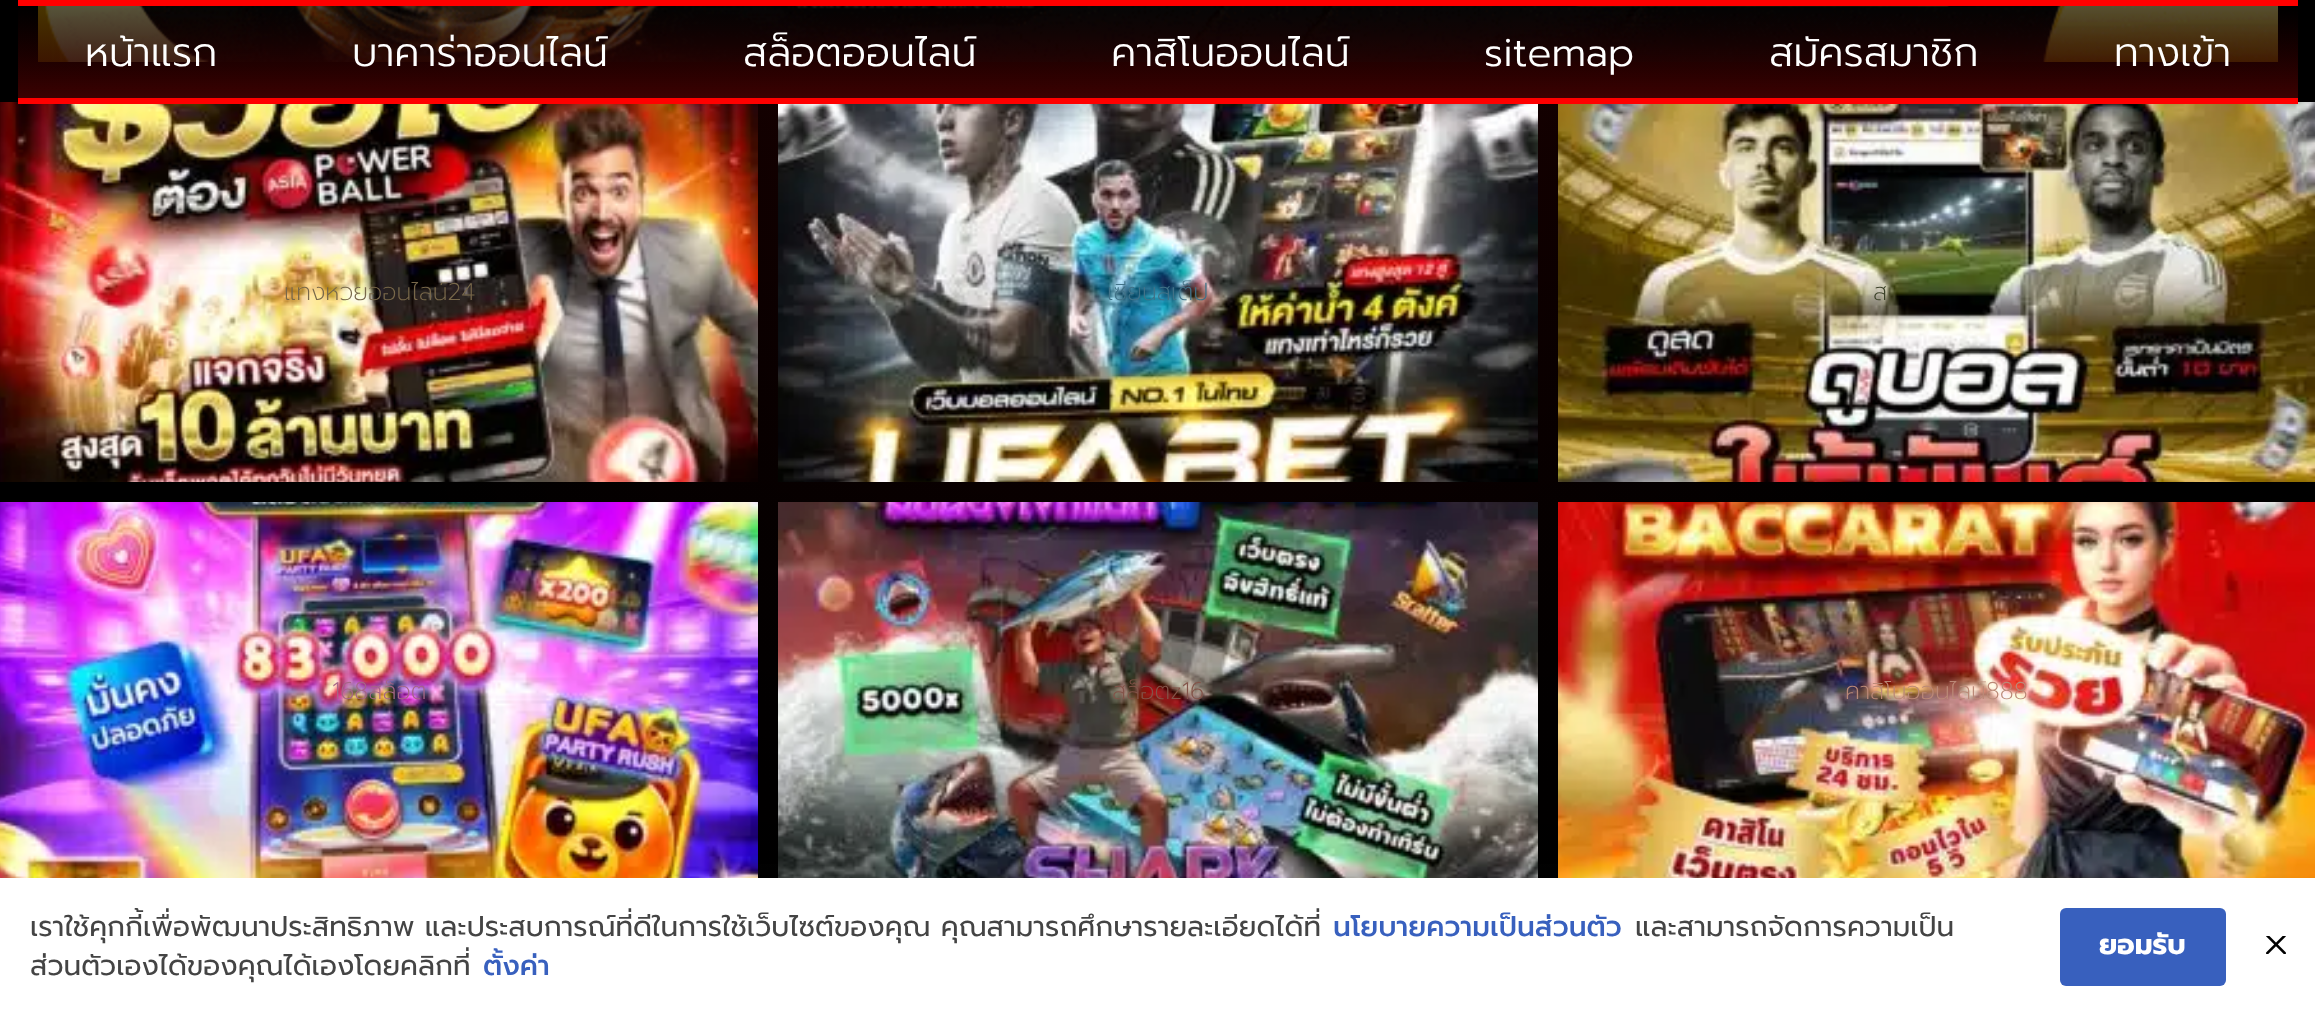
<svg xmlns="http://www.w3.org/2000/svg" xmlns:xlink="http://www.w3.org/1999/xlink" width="2315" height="1016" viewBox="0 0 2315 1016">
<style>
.cls-1{font:300 40px Prompt;fill:#ffffff}
.cls-2{font:200 24px Prompt;fill:#78684a}
.cls-3{font:200 24px Prompt;fill:#417287}
.cls-4{font:200 24px Prompt;fill:#3a4027}
.cls-5{font:200 24px Prompt;fill:#a66687}
.cls-6{font:200 24px Prompt;fill:#835449}
.cls-7{font:200 24px Prompt;fill:#bb8977}
.cls-8{font:28px Prompt;fill:#444444}
.cls-9{font:500 28px Prompt;fill:#3860be}
.cls-10{font:bold 28px Prompt;fill:#ffffff}
</style>
<defs>
<radialGradient id="g1" gradientUnits="userSpaceOnUse" cx="0" cy="0" r="1" gradientTransform="matrix(1638 0 0 6237 1158 -3018)"><stop offset="0.32" stop-color="#a10202"/><stop offset="0.72" stop-color="#000000"/></radialGradient>
<linearGradient id="g2" gradientUnits="userSpaceOnUse" x1="1158" y1="-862" x2="1158" y2="880"><stop offset="0" stop-color="#000000" stop-opacity="0.35"/><stop offset="1" stop-color="#000000"/></linearGradient>
<linearGradient id="g3" gradientUnits="userSpaceOnUse" x1="1158" y1="6" x2="1158" y2="98"><stop offset="0" stop-color="#000000" stop-opacity="0.66"/><stop offset="1" stop-color="#3c0101"/></linearGradient>
</defs>
<rect width="100%" height="100%" fill="#ffffff"/>
<rect fill="url(#g1)" x="0" y="0" width="2315" height="864"/>
<rect fill="url(#g2)" x="0" y="0" width="2315" height="878"/>
<rect fill="#ff0000" x="18" y="0" width="2280" height="6"/>
<image xlink:href="image1.png" x="0" y="102" width="758" height="380"/>
<image xlink:href="image3.png" x="1558" y="102" width="757" height="380"/>
<rect fill="#ff0000" x="18" y="98" width="2280" height="6"/>
<image xlink:href="image0.png" x="38" y="6" width="2240" height="56"/>
<rect fill="url(#g3)" x="18" y="6" width="2280" height="92"/>
<image xlink:href="image2.png" x="778" y="104" width="760" height="378"/>
<image xlink:href="image4.png" x="0" y="502" width="758" height="376"/>
<image xlink:href="image5.png" x="778" y="502" width="760" height="376"/>
<image xlink:href="image6.png" x="1558" y="502" width="757" height="376"/>
<rect fill="#3860be" x="2060" y="908" width="166" height="78" rx="6"/>
<image xlink:href="image7.png" x="2266" y="936" width="20" height="18"/>
<text class="cls-1" x="85" y="66">หน้าแรก</text>
<text class="cls-1" x="352" y="66">บาคาร่าออนไลน์</text>
<text class="cls-1" x="743" y="66">สล็อตออนไลน์</text>
<text class="cls-1" x="1111" y="66">คาสิโนออนไลน์</text>
<text class="cls-1" x="1484" y="66">sitemap</text>
<text class="cls-1" x="1769" y="66">สมัครสมาชิก</text>
<text class="cls-1" x="2114" y="66">ทางเข้า</text>
<text class="cls-2" x="284" y="300">แทงหวยออนไลน์24</text>
<text class="cls-3" x="1107" y="300">เซียนสเต็ป</text>
<text class="cls-4" x="1873" y="300">ส</text>
<text class="cls-5" x="332" y="699">168สล็อต</text>
<text class="cls-6" x="1112" y="699">สล็อตz16</text>
<text class="cls-7" x="1845" y="699">คาสิโนออนไลน์888</text>
<text class="cls-8" x="30" y="936">เราใช้คุกกี้เพื่อพัฒนาประสิทธิภาพ และประสบการณ์ที่ดีในการใช้เว็บไซต์ของคุณ คุณสามารถศึกษารายละเอียดได้ที่</text>
<text class="cls-9" x="1333" y="936">นโยบายความเป็นส่วนตัว</text>
<text class="cls-8" x="1635" y="936">และสามารถจัดการความเป็น</text>
<text class="cls-8" x="30" y="975">ส่วนตัวเองได้ของคุณได้เองโดยคลิกที่</text>
<text class="cls-9" x="483" y="975">ตั้งค่า</text>
<text class="cls-10" x="2099" y="954">ยอมรับ</text>
</svg>
